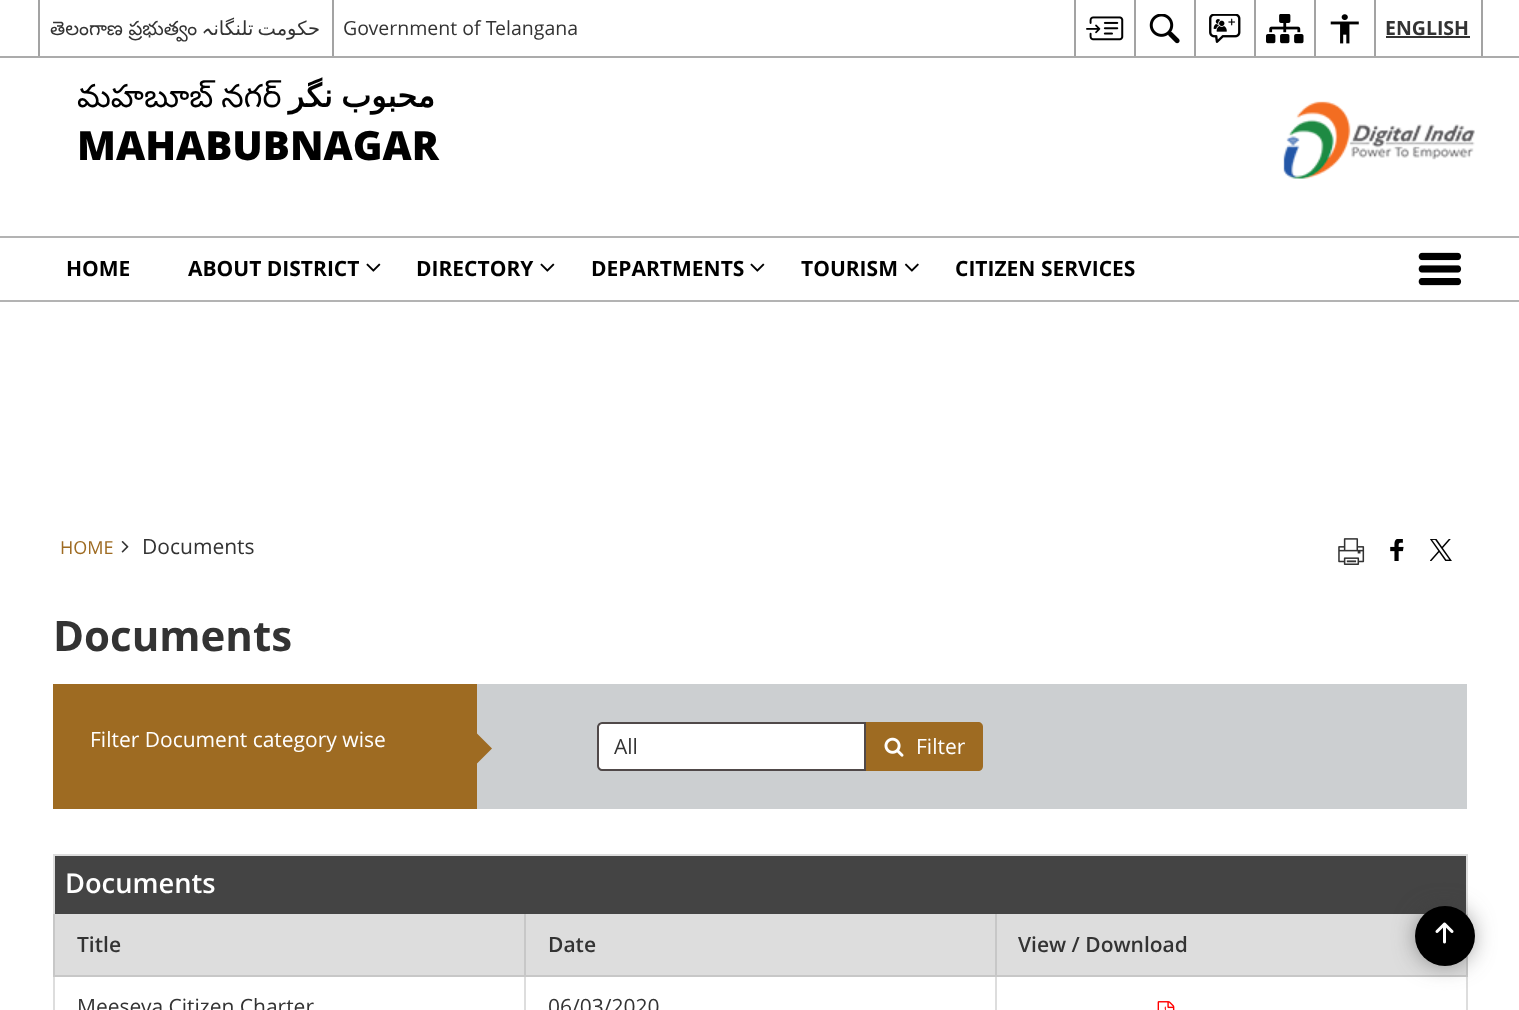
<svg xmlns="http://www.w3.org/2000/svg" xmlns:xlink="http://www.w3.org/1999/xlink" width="1519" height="1010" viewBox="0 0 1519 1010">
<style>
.cls-1{font:19.5px Noto Sans Telugu;fill:#333333}
.cls-2{font:19.5px Cascadia Code;direction:rtl;fill:#333333}
.cls-3{font:19.5px DejaVu Sans;direction:rtl;fill:#333333}
.cls-4{font:19.5px Open Sans;fill:#333333}
.cls-5{font:bold 19.5px Open Sans;fill:#333333}
.cls-6{font:32px Noto Sans Telugu;fill:#000000}
.cls-7{font:bold 32px DejaVu Sans;direction:rtl;fill:#000000}
.cls-8{font:800 40.25px Open Sans;fill:#000000}
.cls-9{font:bold 21px Open Sans;fill:#000000}
.cls-10{font:18px Open Sans;fill:#9e6b22}
.cls-11{font:21px Open Sans;fill:#333333}
.cls-12{font:bold 42px Open Sans;fill:#333333}
.cls-13{font:21px Open Sans;fill:#ffffff}
.cls-14{font:600 27.25px Open Sans;fill:#ffffff}
.cls-15{font:600 21px Open Sans;fill:#333333}
</style>
<rect width="100%" height="100%" fill="#ffffff"/>
<rect fill="#ababab" x="0" y="56" width="1519" height="2"/>
<rect fill="#a3a3a3" x="38" y="0" width="2" height="56"/>
<rect fill="#a3a3a3" x="332" y="0" width="2" height="56"/>
<rect fill="#a3a3a3" x="1074" y="0" width="2" height="56"/>
<image xlink:href="image0.png" x="1086" y="16" width="38" height="25"/>
<rect fill="#a3a3a3" x="1134" y="0" width="2" height="56"/>
<image xlink:href="image1.png" x="1149" y="14" width="31" height="30"/>
<rect fill="#a3a3a3" x="1194" y="0" width="2" height="56"/>
<image xlink:href="image2.png" x="1209" y="14" width="32" height="29"/>
<rect fill="#a3a3a3" x="1254" y="0" width="2" height="56"/>
<image xlink:href="image3.png" x="1266" y="14" width="38" height="30"/>
<rect fill="#a3a3a3" x="1314" y="0" width="2" height="56"/>
<image xlink:href="image4.png" x="1330" y="14" width="29" height="30"/>
<rect fill="#a3a3a3" x="1481" y="0" width="2" height="56"/>
<rect fill="#a3a3a3" x="1374" y="0" width="2" height="56"/>
<rect fill="#333333" x="1386" y="36" width="84" height="2"/>
<image xlink:href="image5.png" x="1283" y="101" width="192" height="78"/>
<rect fill="#b3b3b3" x="0" y="236" width="1519" height="2"/>
<rect fill="#b3b3b3" x="0" y="300" width="1519" height="2"/>
<image xlink:href="image6.png" x="366" y="263" width="15" height="9"/>
<image xlink:href="image6.png" x="540" y="263" width="15" height="9"/>
<image xlink:href="image6.png" x="750" y="263" width="15" height="9"/>
<image xlink:href="image7.png" x="904" y="263" width="15" height="9"/>
<image xlink:href="image8.png" x="1418" y="252" width="44" height="34"/>
<image xlink:href="image9.png" x="121" y="541" width="8" height="12"/>
<image xlink:href="image10.png" x="1338" y="538" width="27" height="27"/>
<image xlink:href="image11.png" x="1390" y="539" width="14" height="22"/>
<image xlink:href="image12.png" x="1430" y="539" width="22" height="22"/>
<rect fill="#cccfd1" x="477" y="684" width="990" height="125"/>
<rect fill="#9e6b22" x="53" y="684" width="424" height="125"/>
<path fill="#9e6b22" d="M477 763.5V733.5L492 748.5Z"/>
<path fill="#ffffff" stroke="#504949" stroke-width="2" d="M602 723H865V770H602C600 770 598 768 598 766V727C598 725 600 723 602 723Z"/>
<path fill="#9e6b22" d="M866 722H978C981 722 983 724 983 727V766C983 769 981 771 978 771H866Z"/>
<image xlink:href="image13.png" x="884" y="737" width="20" height="20"/>
<rect fill="#dddddd" x="53" y="854" width="1414" height="2"/>
<rect fill="#dddddd" x="1466" y="854" width="2" height="156"/>
<rect fill="#dddddd" x="53" y="854" width="2" height="156"/>
<rect fill="#444444" x="55" y="856" width="1411" height="58"/>
<rect fill="#dddddd" x="55" y="914" width="469" height="61"/>
<rect fill="#c7c7c7" x="1466" y="914" width="2" height="63"/>
<rect fill="#dddddd" x="995" y="975" width="2" height="35"/>
<rect fill="#c7c7c7" x="995" y="975" width="472" height="2"/>
<rect fill="#c7c7c7" x="995" y="914" width="2" height="63"/>
<rect fill="#dddddd" x="524" y="975" width="2" height="35"/>
<rect fill="#c7c7c7" x="524" y="975" width="472" height="2"/>
<rect fill="#c7c7c7" x="524" y="914" width="2" height="63"/>
<rect fill="#c7c7c7" x="53" y="975" width="472" height="2"/>
<rect fill="#c7c7c7" x="53" y="914" width="2" height="63"/>
<rect fill="#dddddd" x="526" y="914" width="469" height="61"/>
<rect fill="#dddddd" x="997" y="914" width="469" height="61"/>
<image xlink:href="image14.png" x="1157" y="1001" width="18" height="9"/>
<rect fill="#3c3c3c" filter="blur(14px)" x="1422" y="914" width="45" height="45" rx="22.5"/>
<circle fill="#000000" cx="1445" cy="936" r="30"/>
<image xlink:href="image15.png" x="1435" y="922" width="19" height="22"/>
<text class="cls-1" x="50" y="35">తెలంగాణ ప్రభుత్వం</text>
<text class="cls-2" x="213" y="35">‍ہ</text>
<text class="cls-3" x="320" y="35" word-spacing="-2">حکومت تلنگان‍</text>
<text class="cls-4" x="343" y="35">Government of Telangana</text>
<text class="cls-5" x="1385" y="35">ENGLISH</text>
<text class="cls-6" x="77" y="107" word-spacing="-1">మహబూబ్ నగర్</text>
<text class="cls-7" x="435" y="107" word-spacing="-2">محبوب نگر</text>
<text class="cls-8" x="77" y="160">MAHABUBNAGAR</text>
<text class="cls-9" x="66" y="276">HOME</text>
<text class="cls-9" x="188" y="276">ABOUT DISTRICT</text>
<text class="cls-9" x="416" y="276">DIRECTORY</text>
<text class="cls-9" x="591" y="276">DEPARTMENTS</text>
<text class="cls-9" x="801" y="276">TOURISM</text>
<text class="cls-9" x="955" y="276">CITIZEN SERVICES</text>
<text class="cls-10" x="60" y="554">HOME</text>
<text class="cls-11" x="142" y="554">Documents</text>
<text class="cls-12" x="53" y="651">Documents</text>
<text class="cls-13" x="90" y="747">Filter Document category wise</text>
<text class="cls-11" x="614" y="754">All</text>
<text class="cls-13" x="916" y="754">Filter</text>
<text class="cls-14" x="65" y="893">Documents</text>
<text class="cls-15" x="77" y="952">Title</text>
<text class="cls-15" x="548" y="952">Date</text>
<text class="cls-15" x="1018" y="952">View / Download</text>
<text class="cls-11" x="77" y="1014">Meeseva Citizen Charter</text>
<text class="cls-11" x="548" y="1014">06/03/2020</text>
</svg>
